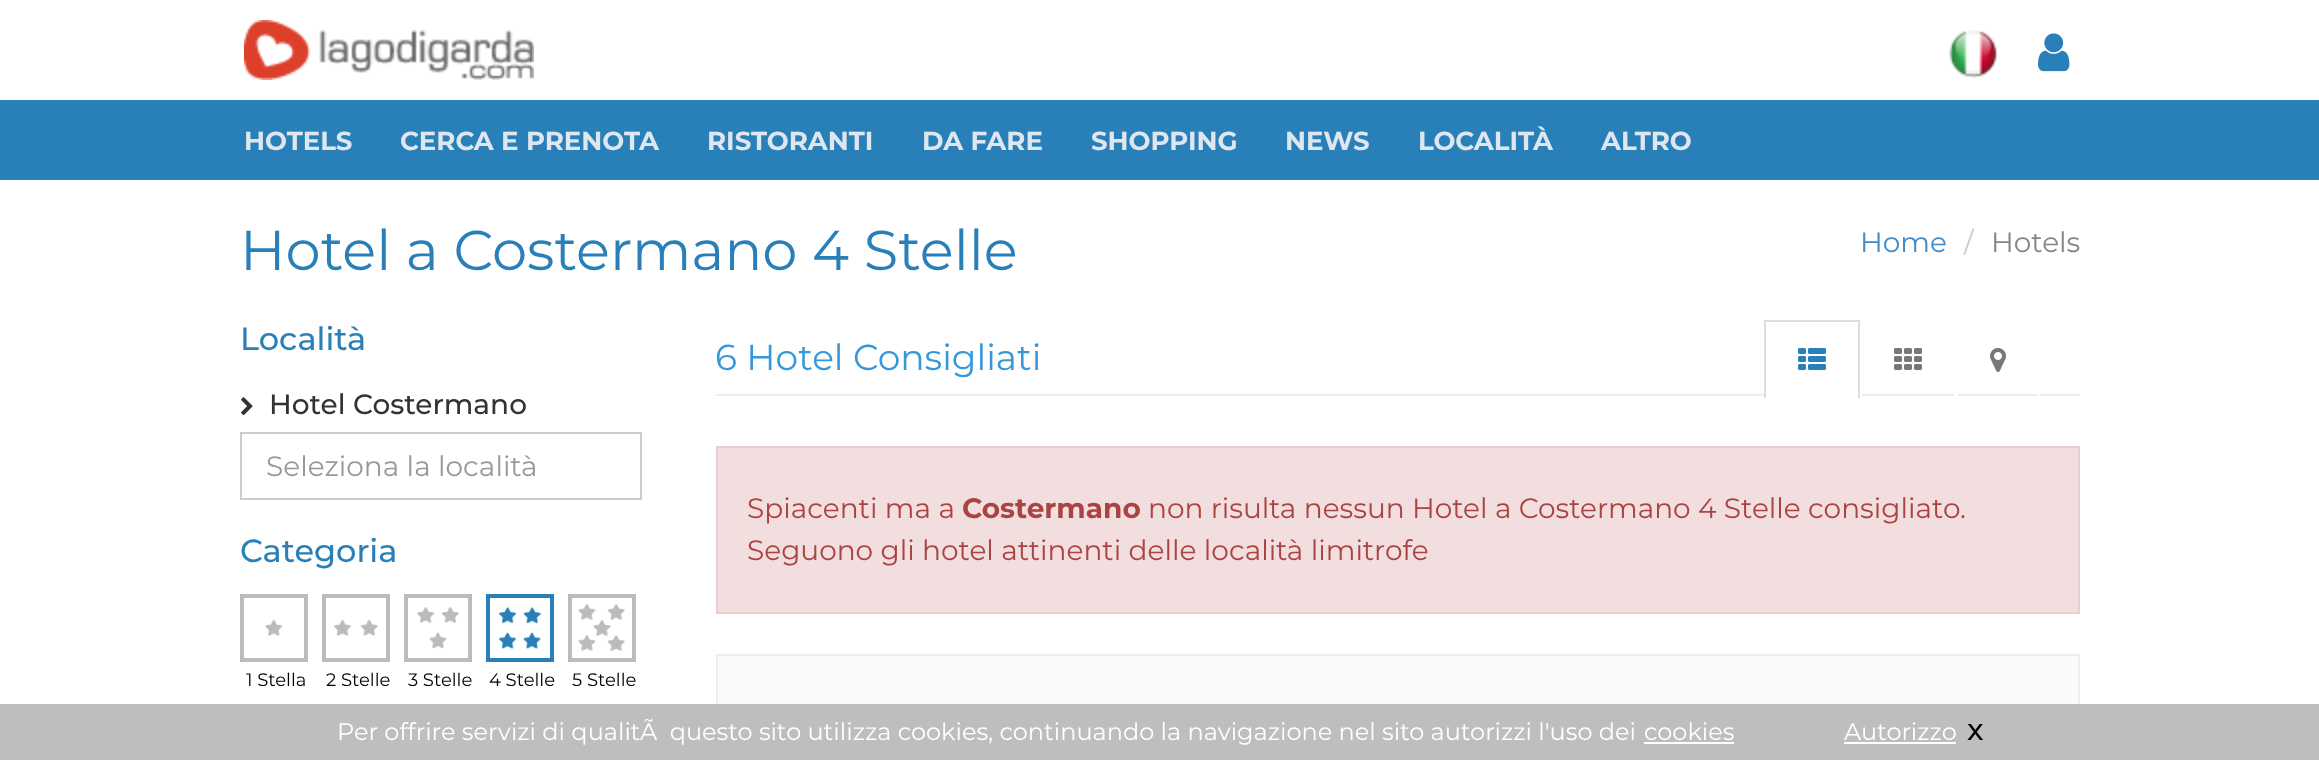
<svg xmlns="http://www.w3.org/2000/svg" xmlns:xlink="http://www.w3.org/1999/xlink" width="2319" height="760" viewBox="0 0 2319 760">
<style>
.cls-1{font:bold 26px Montserrat;fill:#dee7ef}
.cls-2{font:56px Montserrat;fill:#2980b9}
.cls-3{font:28px Montserrat;fill:#428bca}
.cls-4{font:28px Montserrat;fill:#cccccc}
.cls-5{font:28px Montserrat;fill:#868686}
.cls-6{font:500 32px Montserrat;fill:#2980b9}
.cls-7{font:500 28px Montserrat;fill:#333333}
.cls-8{font:28px Montserrat;fill:#999999}
.cls-9{font:18px Montserrat;fill:#000000}
.cls-10{font:36px Montserrat;fill:#3498db}
.cls-11{font:28px Montserrat;fill:#a94442}
.cls-12{font:bold 28px Montserrat;fill:#a94442}
.cls-13{font:24px Montserrat;fill:#ffffff}
.cls-14{font:500 30px Montserrat;fill:#000000}
</style>
<rect width="100%" height="100%" fill="#ffffff"/>
<image xlink:href="image0.png" x="244" y="20" width="290" height="60"/>
<image xlink:href="image1.png" x="1949" y="30" width="48" height="48"/>
<image xlink:href="image2.png" x="2038" y="33" width="32" height="39"/>
<rect fill="#2980b9" x="0" y="100" width="2319" height="80"/>
<image xlink:href="image3.png" x="241" y="397" width="12" height="19"/>
<rect fill="none" stroke="#cccccc" stroke-width="2" x="241" y="433" width="400" height="66"/>
<rect fill="#bbbbbb" x="240" y="594" width="68" height="68"/>
<image xlink:href="image4.png" x="244" y="598" width="60" height="60"/>
<rect fill="#bbbbbb" x="322" y="594" width="68" height="68"/>
<image xlink:href="image5.png" x="326" y="598" width="60" height="60"/>
<rect fill="#bbbbbb" x="404" y="594" width="68" height="68"/>
<image xlink:href="image6.png" x="408" y="598" width="60" height="60"/>
<rect fill="#2980b9" x="486" y="594" width="68" height="68"/>
<image xlink:href="image7.png" x="490" y="598" width="60" height="60"/>
<rect fill="#bbbbbb" x="568" y="594" width="68" height="68"/>
<image xlink:href="image8.png" x="572" y="598" width="60" height="60"/>
<rect fill="#eeeeee" x="716" y="394" width="1364" height="2"/>
<rect fill="#ffffff" x="1766" y="394" width="92" height="2"/>
<rect fill="#dddddd" x="1764" y="320" width="96" height="2"/>
<rect fill="#dddddd" x="1858" y="320" width="2" height="78"/>
<rect fill="#dddddd" x="1764" y="320" width="2" height="78"/>
<image xlink:href="image9.png" x="1798" y="348" width="28" height="22"/>
<rect fill="#ffffff" x="1860" y="394" width="2" height="4"/>
<image xlink:href="image10.png" x="1894" y="348" width="28" height="22"/>
<rect fill="#ffffff" x="2038" y="394" width="2" height="4"/>
<rect fill="#ffffff" x="1954" y="394" width="4" height="4"/>
<image xlink:href="image11.png" x="1990" y="348" width="16" height="24"/>
<rect fill="#f2dede" stroke="#ebccd1" stroke-width="2" x="717" y="447" width="1362" height="166"/>
<rect fill="#fafafa" x="718" y="656" width="1360" height="48"/>
<rect fill="#eeeeee" x="716" y="654" width="1364" height="2"/>
<rect fill="#eeeeee" x="2078" y="654" width="2" height="50"/>
<rect fill="#eeeeee" x="716" y="654" width="2" height="50"/>
<rect fill="#bebebe" x="0" y="704" width="2319" height="56"/>
<rect fill="#ffffff" x="1644" y="742" width="90" height="2"/>
<rect fill="#ffffff" x="1844" y="742" width="112" height="2"/>
<text class="cls-1" x="244" y="150">HOTELS</text>
<text class="cls-1" x="400" y="150">CERCA E PRENOTA</text>
<text class="cls-1" x="707" y="150">RISTORANTI</text>
<text class="cls-1" x="922" y="150">DA FARE</text>
<text class="cls-1" x="1091" y="150">SHOPPING</text>
<text class="cls-1" x="1285" y="150">NEWS</text>
<text class="cls-1" x="1418" y="150">LOCALITÀ</text>
<text class="cls-1" x="1601" y="150">ALTRO</text>
<text class="cls-2" x="240" y="270">Hotel a Costermano 4 Stelle</text>
<text class="cls-3" x="1860" y="252">Home</text>
<text class="cls-4" x="1964" y="252">/</text>
<text class="cls-5" x="1991" y="252">Hotels</text>
<text class="cls-6" x="240" y="350">Località</text>
<text class="cls-7" x="269" y="414">Hotel Costermano</text>
<text class="cls-8" x="266" y="476">Seleziona la località</text>
<text class="cls-6" x="240" y="562">Categoria</text>
<text class="cls-9" x="246" y="686">1 Stella</text>
<text class="cls-9" x="326" y="686">2 Stelle</text>
<text class="cls-9" x="408" y="686">3 Stelle</text>
<text class="cls-9" x="489" y="686">4 Stelle</text>
<text class="cls-9" x="572" y="686">5 Stelle</text>
<text class="cls-10" x="715" y="370">6 Hotel Consigliati</text>
<text class="cls-11" x="747" y="518">Spiacenti ma a</text>
<text class="cls-12" x="962" y="518">Costermano</text>
<text class="cls-11" x="1148" y="518">non risulta nessun Hotel a Costermano 4 Stelle consigliato.</text>
<text class="cls-11" x="747" y="560">Seguono gli hotel attinenti delle località limitrofe</text>
<text class="cls-13" xml:space="preserve" x="337" y="740">Per offrire servizi di qualitÃ  questo sito utilizza cookies, continuando la navigazione nel sito autorizzi l'uso dei</text>
<text class="cls-13" x="1644" y="740">cookies</text>
<text class="cls-13" x="1844" y="740">Autorizzo</text>
<text class="cls-14" x="1967" y="740">x</text>
</svg>
